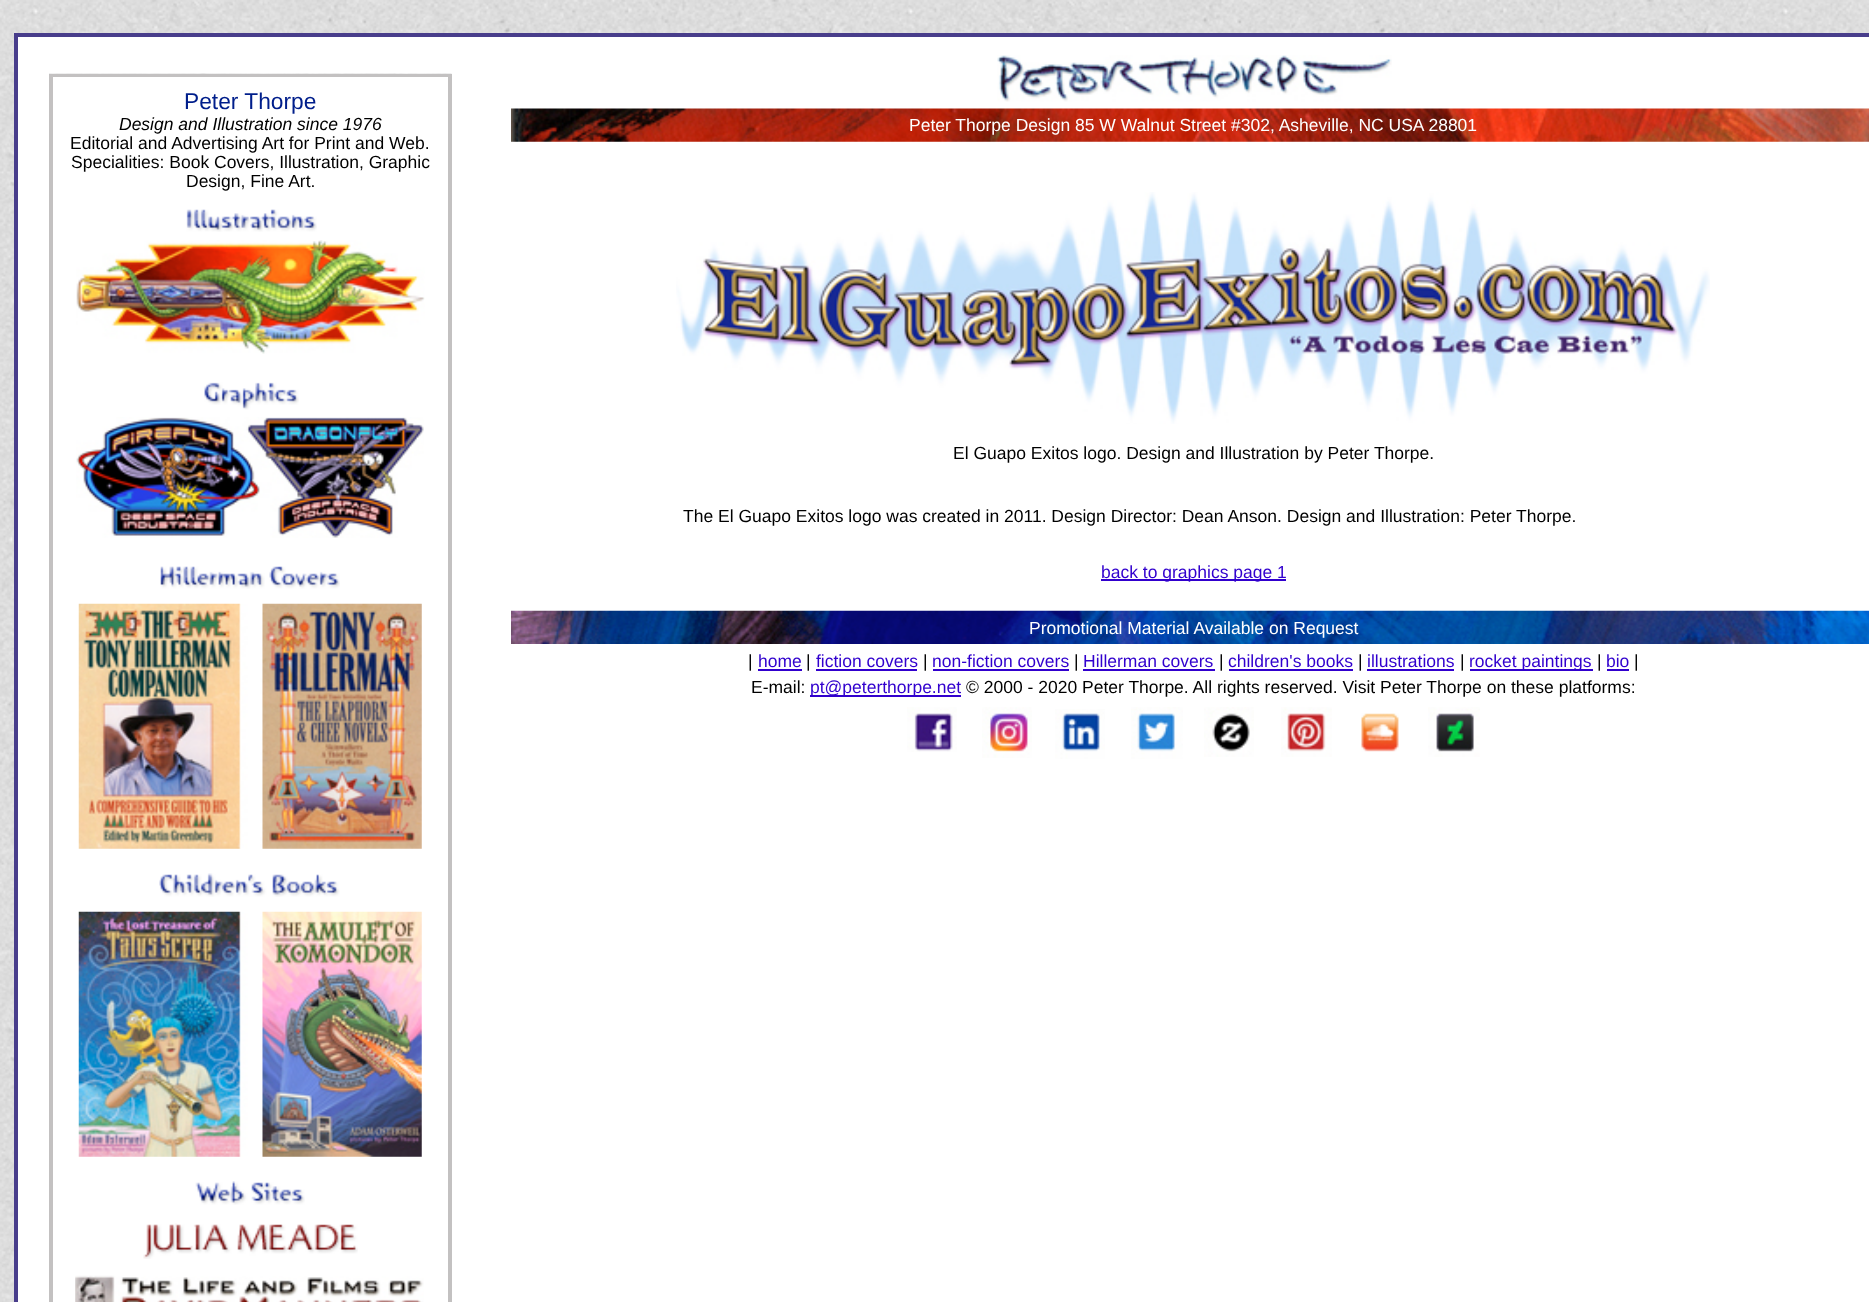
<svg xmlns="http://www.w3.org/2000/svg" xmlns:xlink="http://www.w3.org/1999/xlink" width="1869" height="1302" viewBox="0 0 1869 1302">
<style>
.cls-1{font:22.75px Liberation Sans;fill:#001e8b}
.cls-2{font:italic 17.5px Liberation Sans;fill:#000000}
.cls-3{font:17.5px Liberation Sans;fill:#000000}
.cls-4{font:17.5px Liberation Sans;fill:#ffffff}
.cls-5{font:17.5px Liberation Sans;fill:#3100ce}
</style>
<rect width="100%" height="100%" fill="#ffffff"/>
<image xlink:href="image0.png" x="0" y="0" width="1869" height="1302"/>
<rect fill="#483d8b" x="14" y="33" width="1855" height="1269"/>
<rect fill="#ffffff" x="18" y="37" width="1851" height="1265"/>
<image xlink:href="image1.png" x="49" y="73" width="403" height="1"/>
<rect fill="#c3c1c1" x="49" y="74" width="403" height="1228"/>
<rect fill="#ffffff" x="53" y="77" width="395" height="1225"/>
<image xlink:href="image2.png" x="186" y="209" width="131" height="23"/>
<image xlink:href="image3.png" x="76" y="240" width="349" height="114"/>
<image xlink:href="image4.png" x="204" y="382" width="95" height="28"/>
<image xlink:href="image5.png" x="76" y="417" width="348" height="121"/>
<image xlink:href="image6.png" x="160" y="566" width="180" height="23"/>
<image xlink:href="image7.png" x="78" y="603" width="344" height="246"/>
<image xlink:href="image8.png" x="159" y="873" width="181" height="24"/>
<image xlink:href="image9.png" x="78" y="911" width="344" height="246"/>
<image xlink:href="image10.png" x="195" y="1181" width="110" height="24"/>
<image xlink:href="image11.png" x="143" y="1223" width="215" height="36"/>
<image xlink:href="image12.png" x="75" y="1275" width="349" height="27"/>
<image xlink:href="image13.png" x="997" y="55" width="395" height="47"/>
<image xlink:href="image14.png" x="511" y="108" width="1358" height="34"/>
<image xlink:href="image15.png" x="676" y="192" width="1034" height="232"/>
<rect fill="#3100ce" x="1101" y="579" width="185" height="2"/>
<image xlink:href="image16.png" x="511" y="610" width="1358" height="34"/>
<rect fill="#3100ce" x="758" y="669" width="44" height="2"/>
<rect fill="#3100ce" x="816" y="669" width="101" height="2"/>
<rect fill="#3100ce" x="933" y="669" width="136" height="2"/>
<rect fill="#3100ce" x="1083" y="669" width="132" height="2"/>
<rect fill="#3100ce" x="1229" y="669" width="124" height="2"/>
<rect fill="#3100ce" x="1367" y="669" width="87" height="2"/>
<rect fill="#3100ce" x="1470" y="669" width="123" height="2"/>
<rect fill="#3100ce" x="1607" y="669" width="22" height="2"/>
<rect fill="#3100ce" x="810" y="695" width="151" height="2"/>
<image xlink:href="image17.png" x="907" y="707" width="50" height="45"/>
<image xlink:href="image18.png" x="982" y="707" width="50" height="51"/>
<image xlink:href="image19.png" x="1055" y="709" width="50" height="50"/>
<image xlink:href="image20.png" x="1131" y="707" width="52" height="52"/>
<image xlink:href="image21.png" x="1204" y="707" width="50" height="50"/>
<image xlink:href="image22.png" x="1281" y="707" width="51" height="50"/>
<image xlink:href="image23.png" x="1361" y="713" width="38" height="39"/>
<image xlink:href="image24.png" x="1428" y="707" width="52" height="50"/>
<text class="cls-1" x="184" y="109">Peter Thorpe</text>
<text class="cls-2" x="119" y="130">Design and Illustration since 1976</text>
<text class="cls-3" x="70" y="149">Editorial and Advertising Art for Print and Web.</text>
<text class="cls-3" x="71" y="168">Specialities: Book Covers, Illustration, Graphic</text>
<text class="cls-3" x="186" y="187">Design, Fine Art.</text>
<text class="cls-4" x="909" y="131">Peter Thorpe Design 85 W Walnut Street #302, Asheville, NC USA 28801</text>
<text class="cls-3" x="953" y="459">El Guapo Exitos logo. Design and Illustration by Peter Thorpe.</text>
<text class="cls-3" x="683" y="522">The El Guapo Exitos logo was created in 2011. Design Director: Dean Anson. Design and Illustration: Peter Thorpe.</text>
<text class="cls-5" x="1101" y="578">back to graphics page 1</text>
<text class="cls-4" x="1029" y="634">Promotional Material Available on Request</text>
<text class="cls-3" x="748" y="667">|</text>
<text class="cls-5" x="758" y="667">home</text>
<text class="cls-3" x="806" y="667">|</text>
<text class="cls-5" x="816" y="667">fiction covers</text>
<text class="cls-3" x="923" y="667">|</text>
<text class="cls-5" x="932" y="667">non-fiction covers</text>
<text class="cls-3" x="1074" y="667">|</text>
<text class="cls-5" x="1083" y="667">Hillerman covers</text>
<text class="cls-3" x="1219" y="667">|</text>
<text class="cls-5" x="1228" y="667">children's books</text>
<text class="cls-3" x="1358" y="667">|</text>
<text class="cls-5" x="1367" y="667">illustrations</text>
<text class="cls-3" x="1460" y="667">|</text>
<text class="cls-5" x="1469" y="667">rocket paintings</text>
<text class="cls-3" x="1597" y="667">|</text>
<text class="cls-5" x="1606" y="667">bio</text>
<text class="cls-3" x="1634" y="667">|</text>
<text class="cls-3" x="751" y="693">E-mail:</text>
<text class="cls-5" x="810" y="693">pt@peterthorpe.net</text>
<text class="cls-3" x="966" y="693">© 2000 - 2020 Peter Thorpe. All rights reserved. Visit Peter Thorpe on these platforms:</text>
</svg>
